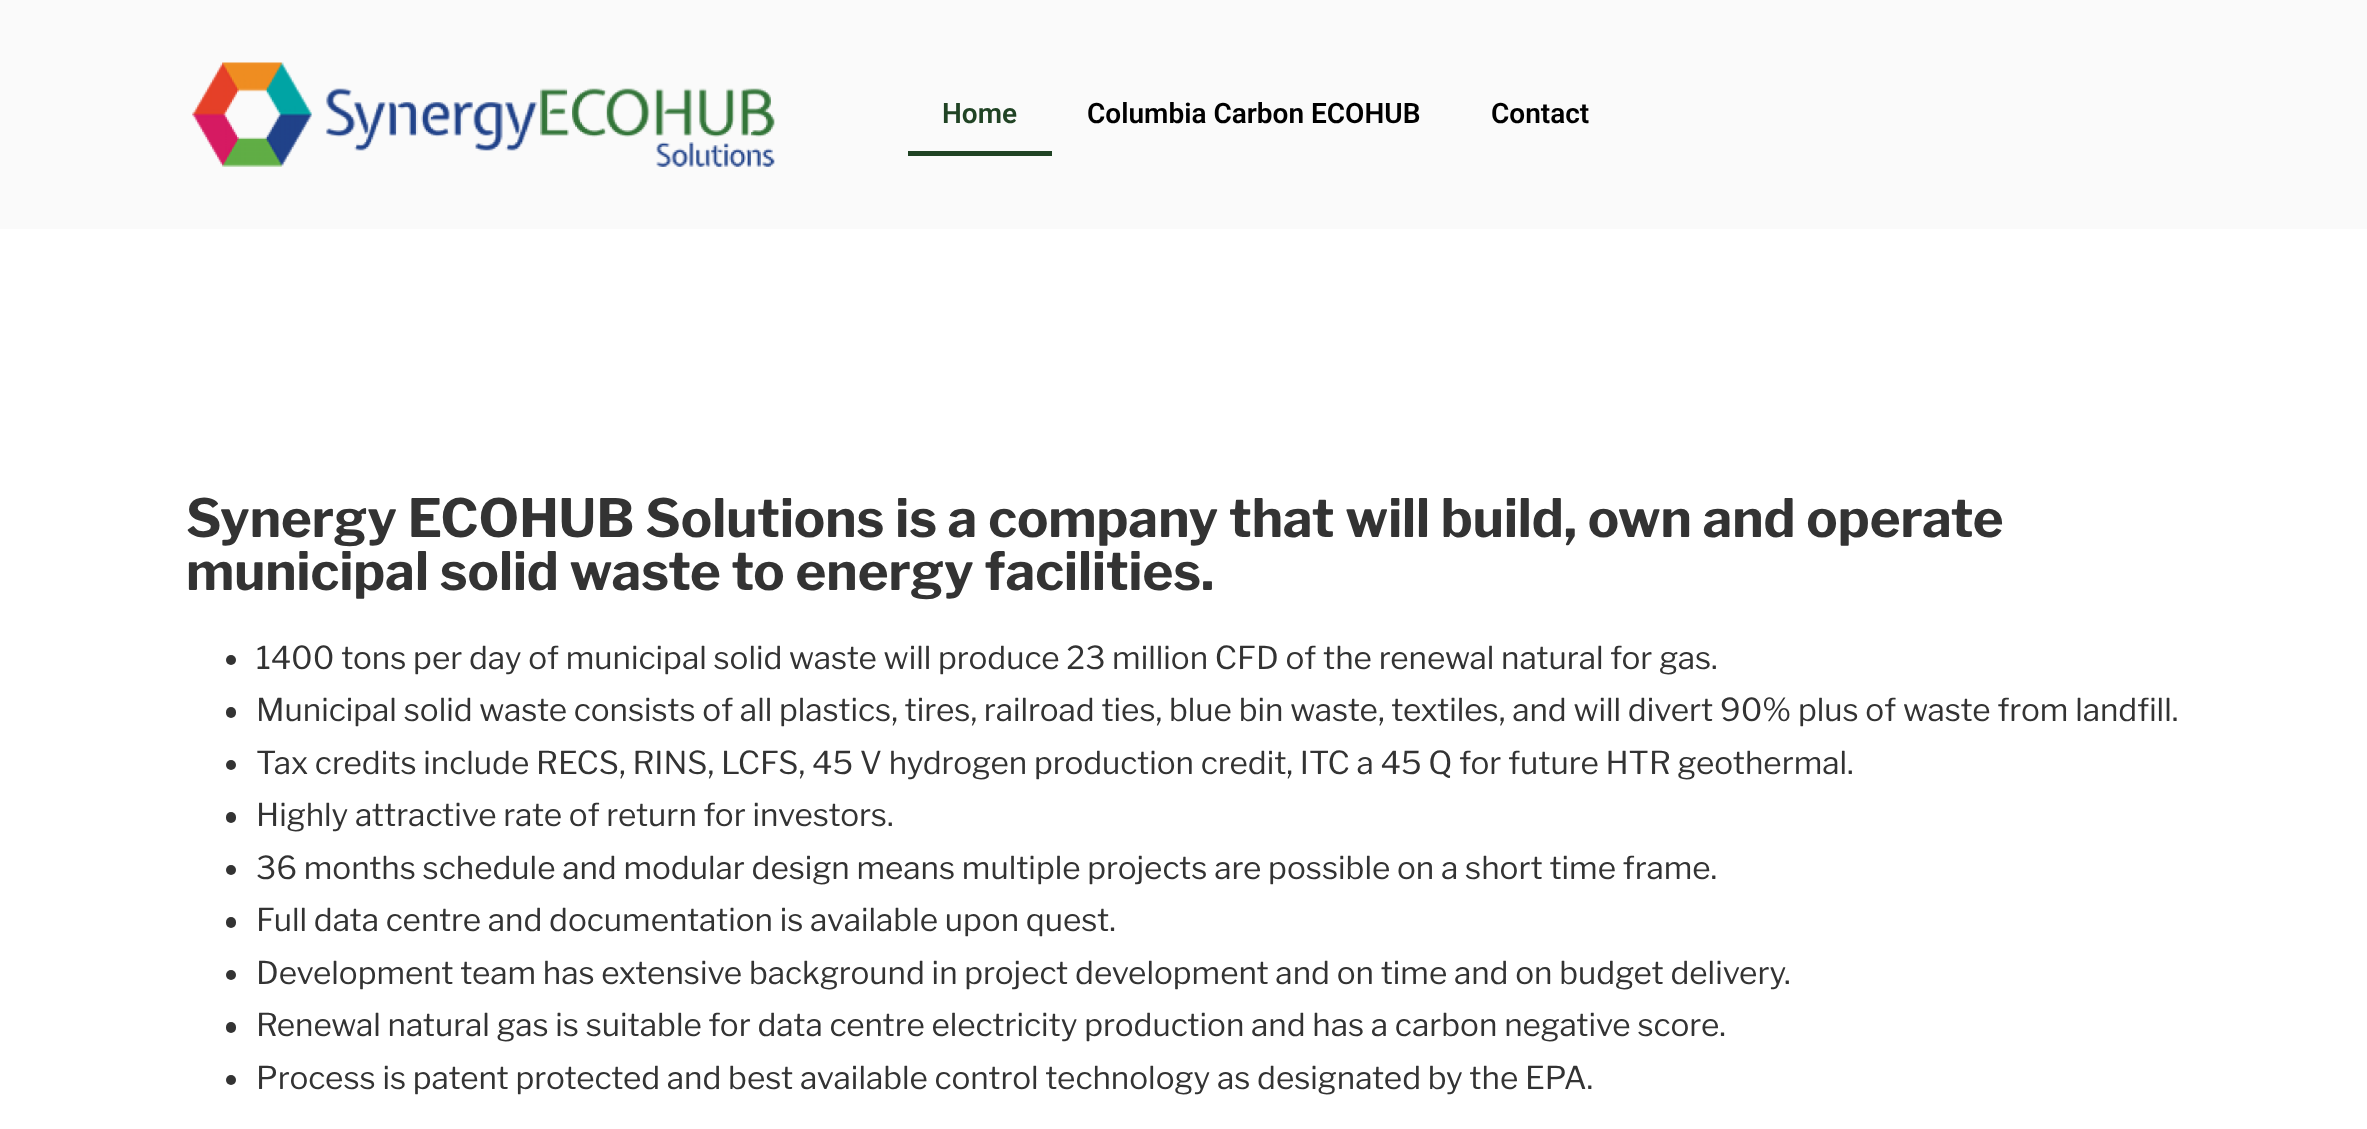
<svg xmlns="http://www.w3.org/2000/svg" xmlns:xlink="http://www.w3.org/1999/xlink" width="2367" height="1129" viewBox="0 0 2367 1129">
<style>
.cls-1{font:600 28px Roboto;fill:#204324}
.cls-2{font:600 28px Roboto;fill:#000000}
.cls-3{font:bold 52.5px Libre Franklin;fill:#333333}
.cls-4{font:31.5px Libre Franklin;fill:#333333}
</style>
<rect width="100%" height="100%" fill="#ffffff"/>
<rect fill="#fafafa" x="0" y="0" width="2367" height="229"/>
<image xlink:href="image0.png" x="192" y="62" width="583" height="105"/>
<rect fill="#204324" x="908" y="151" width="144" height="5"/>
<circle fill="#333333" cx="231" cy="660" r="5"/>
<rect fill="#333333" x="226" y="707" width="10" height="11" rx="5"/>
<circle fill="#333333" cx="231" cy="765" r="5"/>
<rect fill="#333333" x="226" y="812" width="10" height="11" rx="5"/>
<circle fill="#333333" cx="231" cy="870" r="5"/>
<rect fill="#333333" x="226" y="917" width="10" height="11" rx="5"/>
<circle fill="#333333" cx="231" cy="975" r="5"/>
<rect fill="#333333" x="226" y="1022" width="10" height="11" rx="5"/>
<circle fill="#333333" cx="231" cy="1080" r="5"/>
<text class="cls-1" x="942" y="123">Home</text>
<text class="cls-2" x="1087" y="123">Columbia Carbon ECOHUB</text>
<text class="cls-2" x="1491" y="123">Contact</text>
<text class="cls-3"><tspan x="186" y="537">Synergy ECOHUB Solutions is a company that will build, own and operate</tspan><tspan x="186" y="590">municipal solid waste to energy facilities.</tspan></text>
<text class="cls-4"><tspan x="256" y="669">1400 tons per day of municipal solid waste will produce 23 million CFD of the renewal natural for gas.</tspan><tspan x="256" y="721">Municipal solid waste consists of all plastics, tires, railroad ties, blue bin waste, textiles, and will divert 90% plus of waste from landfill.</tspan><tspan x="256" y="774">Tax credits include RECS, RINS, LCFS, 45 V hydrogen production credit, ITC a 45 Q for future HTR geothermal.</tspan><tspan x="256" y="826">Highly attractive rate of return for investors.</tspan><tspan x="256" y="879">36 months schedule and modular design means multiple projects are possible on a short time frame.</tspan><tspan x="256" y="931">Full data centre and documentation is available upon quest.</tspan><tspan x="256" y="984">Development team has extensive background in project development and on time and on budget delivery.</tspan><tspan x="256" y="1036">Renewal natural gas is suitable for data centre electricity production and has a carbon negative score.</tspan><tspan x="256" y="1089">Process is patent protected and best available control technology as designated by the EPA.</tspan></text>
</svg>
